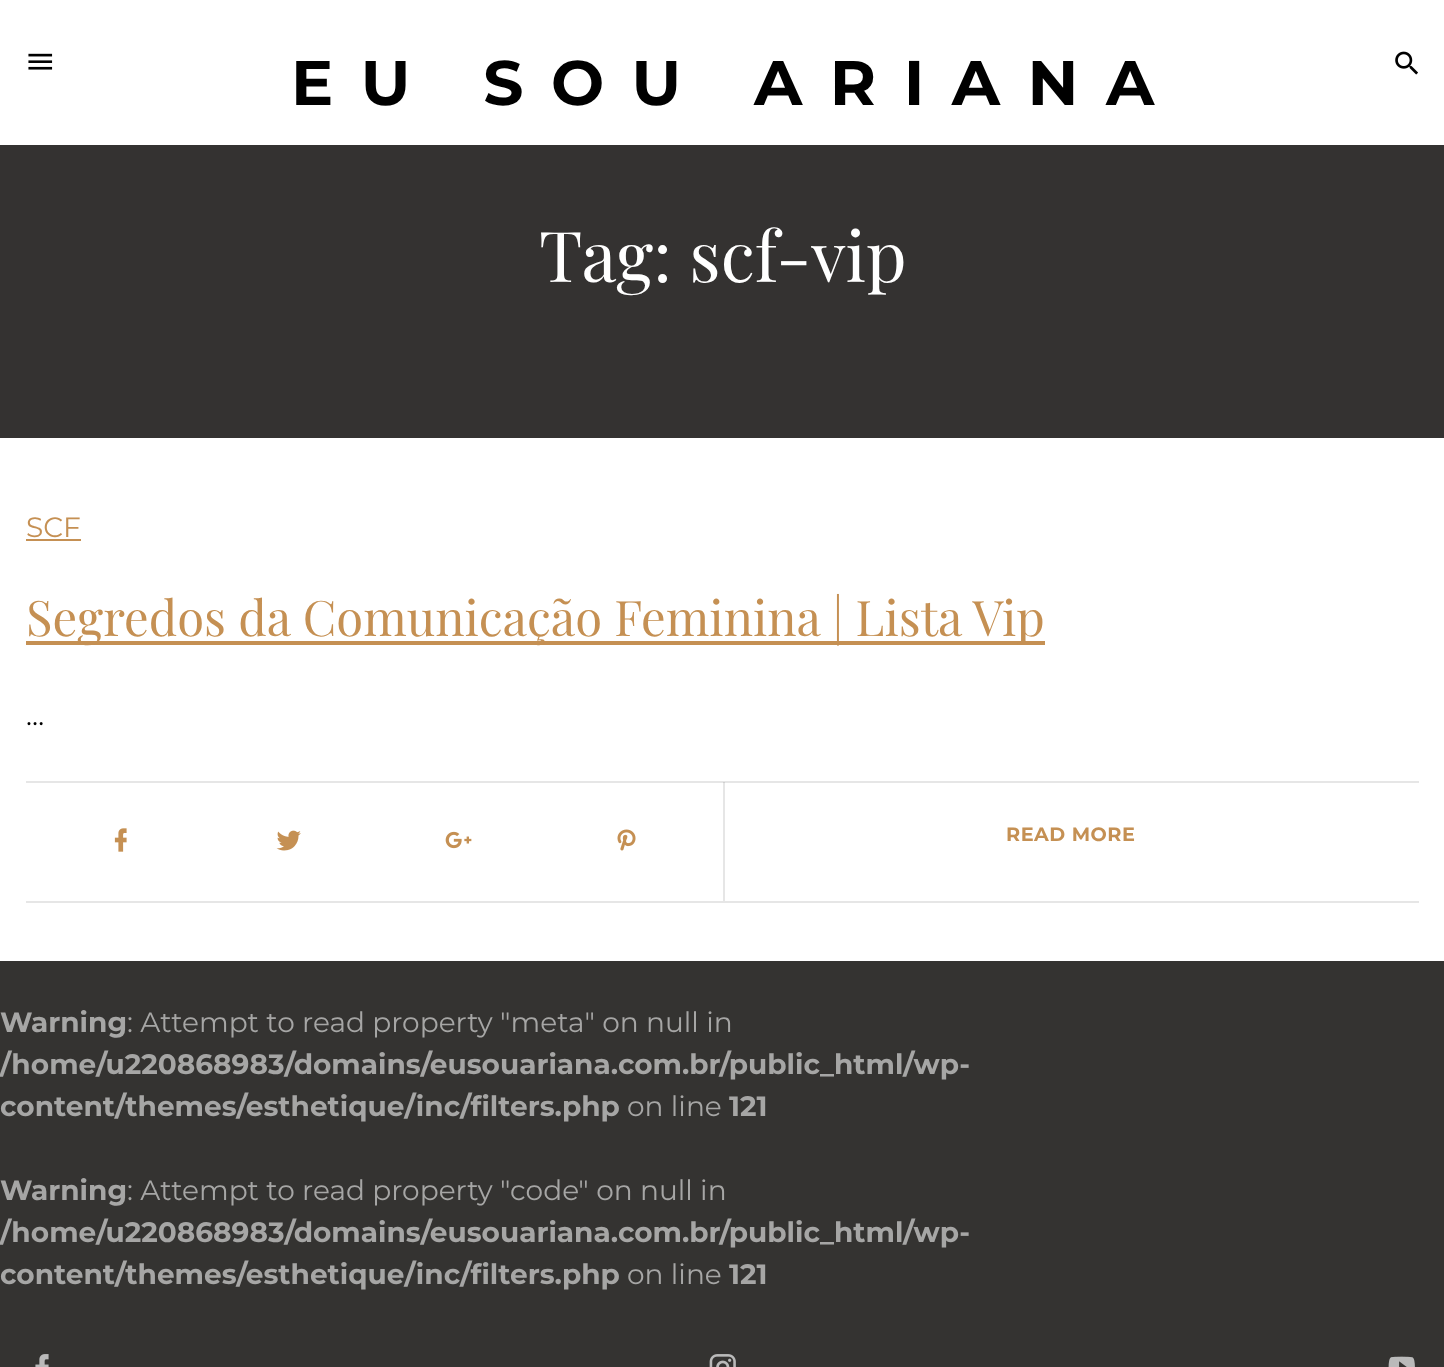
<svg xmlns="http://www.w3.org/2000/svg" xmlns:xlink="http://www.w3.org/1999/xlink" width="1444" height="1367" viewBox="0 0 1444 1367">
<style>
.cls-1{font:bold 63px Montserrat;letter-spacing:27.5px;fill:#000000}
.cls-2{font:70px Playfair Display;fill:#ffffff}
.cls-3{font:28px Montserrat;fill:#c59053}
.cls-4{font:49px Playfair Display;fill:#c59053}
.cls-5{font:28px Montserrat;fill:#000000}
.cls-6{font:bold 19.25px Montserrat;letter-spacing:0.5px;fill:#c59053}
.cls-7{font:bold 28px Montserrat;fill:#a6a6a5}
.cls-8{font:28px Montserrat;fill:#a6a6a5}
</style>
<rect width="100%" height="100%" fill="#ffffff"/>
<rect fill="#e6e6e6" x="723" y="782" width="2" height="119"/>
<image xlink:href="image0.png" x="28" y="53" width="25" height="17"/>
<image xlink:href="image1.png" x="1395" y="51" width="23" height="24"/>
<rect fill="#343231" x="0" y="145" width="1444" height="293"/>
<rect fill="#c59053" x="26" y="539" width="55" height="2"/>
<rect fill="#c59053" x="26" y="641" width="1019" height="4"/>
<rect fill="#e6e6e6" x="26" y="781" width="1393" height="2"/>
<rect fill="#cfcfcf" x="723" y="782" width="2" height="1"/>
<rect fill="#e6e6e6" x="26" y="901" width="1393" height="2"/>
<image xlink:href="image2.png" x="114" y="828" width="13" height="24"/>
<image xlink:href="image3.png" x="276" y="830" width="25" height="21"/>
<image xlink:href="image4.png" x="445" y="831" width="27" height="18"/>
<image xlink:href="image5.png" x="617" y="829" width="19" height="22"/>
<rect fill="#343331" x="0" y="961" width="1444" height="406"/>
<image xlink:href="image6.png" x="35" y="1354" width="14" height="13"/>
<image xlink:href="image7.png" x="709" y="1354" width="27" height="13"/>
<image xlink:href="image8.png" x="1388" y="1356" width="27" height="11"/>
<text class="cls-1" x="291" y="105">EU SOU ARIANA</text>
<text class="cls-2" x="539" y="282">Tag: scf-vip</text>
<text class="cls-3" x="26" y="537">SCF</text>
<text class="cls-4" x="26" y="636">Segredos da Comunicação Feminina | Lista Vip</text>
<text class="cls-5" x="26" y="725">…</text>
<text class="cls-6" x="1006" y="841">READ MORE</text>
<text class="cls-7" x="0" y="1032">Warning</text>
<text class="cls-8" x="127" y="1032">: Attempt to read property "meta" on null in</text>
<text class="cls-7"><tspan x="0" y="1074">/home/u220868983/domains/eusouariana.com.br/public_html/wp-</tspan><tspan x="0" y="1116">content/themes/esthetique/inc/filters.php</tspan></text>
<text class="cls-8" x="627" y="1116">on line</text>
<text class="cls-7" x="729" y="1116">121</text>
<text class="cls-7" x="0" y="1200">Warning</text>
<text class="cls-8" x="127" y="1200">: Attempt to read property "code" on null in</text>
<text class="cls-7"><tspan x="0" y="1242">/home/u220868983/domains/eusouariana.com.br/public_html/wp-</tspan><tspan x="0" y="1284">content/themes/esthetique/inc/filters.php</tspan></text>
<text class="cls-8" x="627" y="1284">on line</text>
<text class="cls-7" x="729" y="1284">121</text>
</svg>
